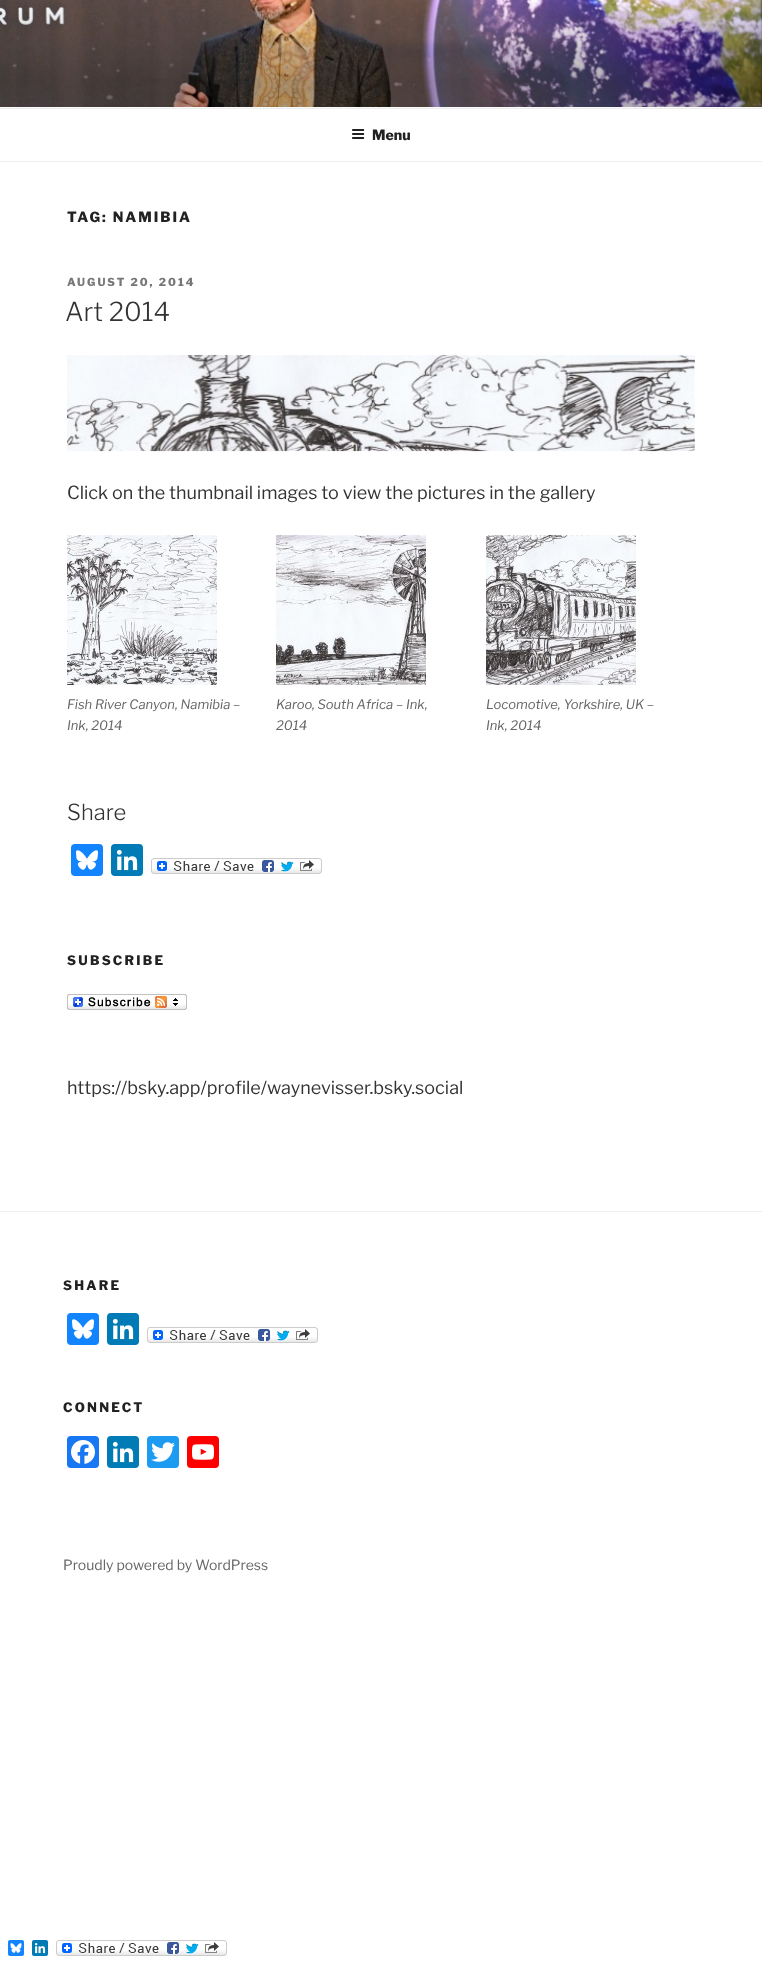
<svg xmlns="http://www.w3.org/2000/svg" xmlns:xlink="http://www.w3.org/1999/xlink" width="762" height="1966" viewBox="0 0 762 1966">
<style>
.cls-1{font:800 14px Libre Franklin;fill:#222222}
.cls-2{font:800 14px Libre Franklin;letter-spacing:2px;fill:#222222}
.cls-3{font:800 11px Libre Franklin;letter-spacing:2px;fill:#767676}
.cls-4{font:300 26px Libre Franklin;fill:#333333}
.cls-5{font:18px Libre Franklin;fill:#333333}
.cls-6{font:italic 13px Libre Franklin;fill:#666666}
.cls-7{font:300 22px Libre Franklin;fill:#333333}
.cls-8{font:800 13px Libre Franklin;letter-spacing:2.25px;fill:#222222}
.cls-9{font:14px Libre Franklin;fill:#666666}
</style>
<rect width="100%" height="100%" fill="#ffffff"/>
<rect fill="#fafafa" x="0" y="107" width="762" height="1"/>
<image xlink:href="image0.png" x="0" y="0" width="762" height="107"/>
<rect fill="#eeeeee" x="0" y="108" width="762" height="1"/>
<rect fill="#eeeeee" x="0" y="161" width="762" height="1"/>
<image xlink:href="image1.png" x="352" y="129" width="13" height="10"/>
<image xlink:href="image2.png" x="67" y="354" width="628" height="98"/>
<image xlink:href="image3.png" x="67" y="535" width="150" height="150"/>
<image xlink:href="image4.png" x="276" y="535" width="150" height="150"/>
<image xlink:href="image5.png" x="486" y="535" width="150" height="150"/>
<rect fill="#1285fe" x="71" y="844" width="32" height="32" rx="4"/>
<image xlink:href="image6.png" x="76" y="850" width="22" height="20"/>
<rect fill="#007bb5" x="111" y="844" width="32" height="32" rx="4"/>
<image xlink:href="image7.png" x="116" y="849" width="22" height="22"/>
<image xlink:href="image8.png" x="151" y="858" width="171" height="16"/>
<image xlink:href="image9.png" x="67" y="994" width="120" height="16"/>
<rect fill="#eeeeee" x="0" y="1211" width="762" height="1"/>
<rect fill="#1285fe" x="67" y="1313" width="32" height="32" rx="4"/>
<image xlink:href="image6.png" x="72" y="1319" width="22" height="20"/>
<rect fill="#007bb5" x="107" y="1313" width="32" height="32" rx="4"/>
<image xlink:href="image7.png" x="112" y="1318" width="22" height="22"/>
<image xlink:href="image8.png" x="147" y="1327" width="171" height="16"/>
<rect fill="#1877f2" x="67" y="1436" width="32" height="32" rx="4"/>
<image xlink:href="image10.png" x="71" y="1440" width="24" height="24"/>
<rect fill="#007bb5" x="107" y="1436" width="32" height="32" rx="4"/>
<image xlink:href="image7.png" x="112" y="1441" width="22" height="22"/>
<rect fill="#1d9bf0" x="147" y="1436" width="32" height="32" rx="4"/>
<image xlink:href="image11.png" x="151" y="1442" width="24" height="20"/>
<rect fill="#ff0000" x="187" y="1436" width="32" height="32" rx="4"/>
<image xlink:href="image12.png" x="192" y="1444" width="22" height="16"/>
<rect fill="#1285fe" x="8" y="1940" width="16" height="16" rx="2"/>
<image xlink:href="image13.png" x="10" y="1943" width="12" height="10"/>
<rect fill="#007bb5" x="32" y="1940" width="16" height="16" rx="2"/>
<image xlink:href="image14.png" x="35" y="1943" width="11" height="11"/>
<image xlink:href="image8.png" x="56" y="1940" width="171" height="16"/>
<text class="cls-1" x="372" y="140">Menu</text>
<text class="cls-2" x="67" y="222">TAG: NAMIBIA</text>
<text class="cls-3" x="67" y="286">AUGUST 20, 2014</text>
<text class="cls-4" x="65" y="321">Art 2014</text>
<text class="cls-5" x="67" y="499">Click on the thumbnail images to view the pictures in the gallery</text>
<text class="cls-6"><tspan x="67" y="709">Fish River Canyon, Namibia –</tspan><tspan x="67" y="730">Ink, 2014</tspan></text>
<text class="cls-6"><tspan x="276" y="709">Karoo, South Africa – Ink,</tspan><tspan x="276" y="730">2014</tspan></text>
<text class="cls-6"><tspan x="486" y="709">Locomotive, Yorkshire, UK –</tspan><tspan x="486" y="730">Ink, 2014</tspan></text>
<text class="cls-7" x="67" y="820">Share</text>
<text class="cls-8" x="67" y="965">SUBSCRIBE</text>
<text class="cls-5" x="67" y="1094">https://bsky.app/profile/waynevisser.bsky.social</text>
<text class="cls-8" x="63" y="1290">SHARE</text>
<text class="cls-8" x="63" y="1412">CONNECT</text>
<text class="cls-9" x="63" y="1570">Proudly powered by WordPress</text>
</svg>
